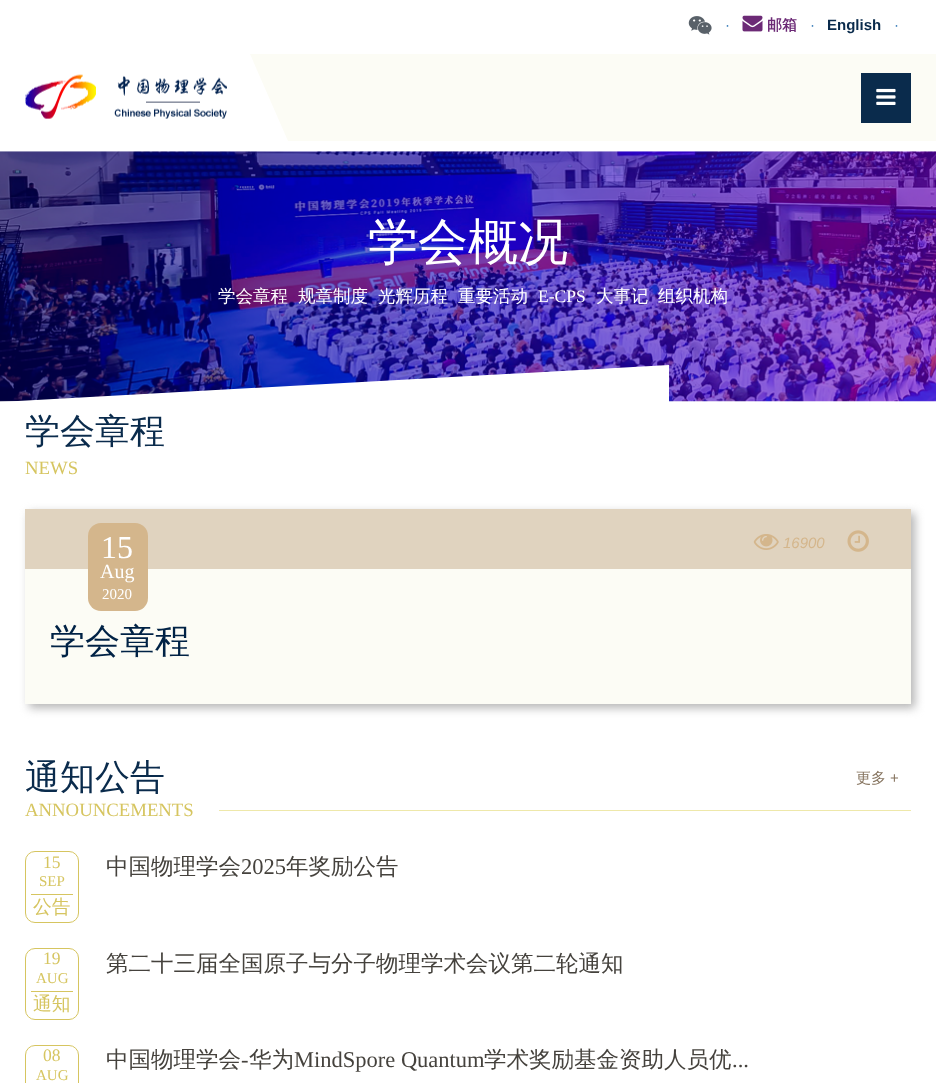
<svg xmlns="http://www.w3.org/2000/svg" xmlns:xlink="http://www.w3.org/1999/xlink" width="936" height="1083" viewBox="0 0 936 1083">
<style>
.cls-1{font:15px Liberation Sans;fill:#337ab7}
.cls-2{font:bold 15px WenQuanYi Zen Hei;fill:#6c2a76}
.cls-3{font:bold 15px Liberation Sans;fill:#0a2b4c}
.cls-4{font:500 50px WenQuanYi Zen Hei;fill:#ffffff}
.cls-5{font:500 17.5px WenQuanYi Zen Hei;fill:#ffffff}
.cls-6{font:17.5px Liberation Serif;fill:#ffffff}
.cls-7{font:500 35px WenQuanYi Zen Hei;fill:#0a2b4c}
.cls-8{font:18.75px Liberation Serif;fill:#d6c560}
.cls-9{font:32px Liberation Serif;fill:#ffffff}
.cls-10{font:20px Liberation Serif;fill:#ffffff}
.cls-11{font:15px Liberation Serif;fill:#ffffff}
.cls-12{font:500 35px WenQuanYi Zen Hei;fill:#002245}
.cls-13{font:italic 15px Liberation Sans;fill:#d4b68c}
.cls-14{font:500 15px WenQuanYi Zen Hei;fill:#86745f}
.cls-15{font:15px Liberation Sans;fill:#86745f}
.cls-16{font:17.5px Liberation Serif;fill:#d6c560}
.cls-17{font:15px Liberation Serif;fill:#d6c560}
.cls-18{font:500 18.75px WenQuanYi Zen Hei;fill:#d6c560}
.cls-19{font:500 22.5px WenQuanYi Zen Hei;fill:#45423d}
.cls-20{font:22.5px Liberation Serif;fill:#45423d}
</style>
<rect width="100%" height="100%" fill="#ffffff"/>
<image xlink:href="image0.png" x="688" y="16" width="24" height="19"/>
<image xlink:href="image1.png" x="742" y="15" width="21" height="17"/>
<rect fill="#fcfcf5" x="288" y="54" width="648" height="87"/>
<image xlink:href="image2.png" x="25" y="74" width="202" height="45"/>
<path fill="#fcfcf5" d="M288 54V141L250 54Z"/>
<rect fill="#0a2b4c" x="861" y="73" width="50" height="50"/>
<image xlink:href="image3.png" x="876" y="88" width="20" height="17"/>
<image xlink:href="image4.png" x="0" y="151" width="936" height="251"/>
<path fill="#ffffff" d="M669 402H0L669 365Z"/>
<rect fill="#b5b5b5" filter="blur(5px)" x="29" y="513" width="886" height="195"/>
<rect fill="#fcfcf5" x="25" y="569" width="886" height="135"/>
<rect fill="#e0d3bf" x="25" y="509" width="886" height="60"/>
<rect fill="#d4b68c" x="88" y="523" width="60" height="88" rx="13"/>
<image xlink:href="image5.png" x="753" y="534" width="26" height="16"/>
<image xlink:href="image6.png" x="847" y="530" width="22" height="22"/>
<rect fill="#eee8aa" x="219" y="810" width="692" height="1"/>
<rect fill="none" stroke="#d6c560" x="25.5" y="851.5" width="53" height="71" rx="9.5"/>
<rect fill="#d6c560" x="31" y="894" width="42" height="1"/>
<rect fill="none" stroke="#d6c560" x="25.5" y="948.5" width="53" height="71" rx="9.5"/>
<rect fill="#d6c560" x="31" y="991" width="42" height="1"/>
<rect fill="none" stroke="#d6c560" x="25.5" y="1045.5" width="53" height="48" rx="9.5"/>
<text class="cls-1" x="725" y="30">·</text>
<text class="cls-2" x="767" y="30">邮箱</text>
<text class="cls-1" x="810" y="30">·</text>
<text class="cls-3" x="827" y="30">English</text>
<text class="cls-1" x="894" y="30">·</text>
<text class="cls-4" x="368" y="259">学会概况</text>
<text class="cls-5" x="218" y="302">学会章程</text>
<text class="cls-5" x="298" y="302">规章制度</text>
<text class="cls-5" x="378" y="302">光辉历程</text>
<text class="cls-5" x="458" y="302">重要活动</text>
<text class="cls-6" x="538" y="302">E-CPS</text>
<text class="cls-5" x="596" y="302">大事记</text>
<text class="cls-5" x="658" y="302">组织机构</text>
<text class="cls-7" x="25" y="443">学会章程</text>
<text class="cls-8" x="25" y="474">NEWS</text>
<text class="cls-9" x="101" y="558">15</text>
<text class="cls-10" x="100" y="578">Aug</text>
<text class="cls-11" x="102" y="599">2020</text>
<text class="cls-12" x="50" y="653">学会章程</text>
<text class="cls-13" x="783" y="548">16900</text>
<text class="cls-7" x="25" y="789">通知公告</text>
<text class="cls-14" x="856" y="783">更多</text>
<text class="cls-15" x="890" y="783">+</text>
<text class="cls-8" x="25" y="816">ANNOUNCEMENTS</text>
<text class="cls-16" x="43" y="868">15</text>
<text class="cls-17" x="39" y="886">SEP</text>
<text class="cls-18" x="33" y="913">公告</text>
<text class="cls-19" x="106" y="874">中国物理学会</text>
<text class="cls-20" x="241" y="874">2025</text>
<text class="cls-19" x="286" y="874">年奖励公告</text>
<text class="cls-16" x="43" y="964">19</text>
<text class="cls-17" x="36" y="983">AUG</text>
<text class="cls-18" x="33" y="1010">通知</text>
<text class="cls-19" x="106" y="971">第二十三届全国原子与分子物理学术会议第二轮通知</text>
<text class="cls-16" x="43" y="1061">08</text>
<text class="cls-17" x="36" y="1080">AUG</text>
<text class="cls-19" x="106" y="1067">中国物理学会</text>
<text class="cls-20" x="241" y="1067">-</text>
<text class="cls-19" x="249" y="1067">华为</text>
<text class="cls-20" x="294" y="1067">MindSpore Quantum</text>
<text class="cls-19" x="484" y="1067">学术奖励基金资助人员优</text>
<text class="cls-20" x="732" y="1067">...</text>
</svg>
